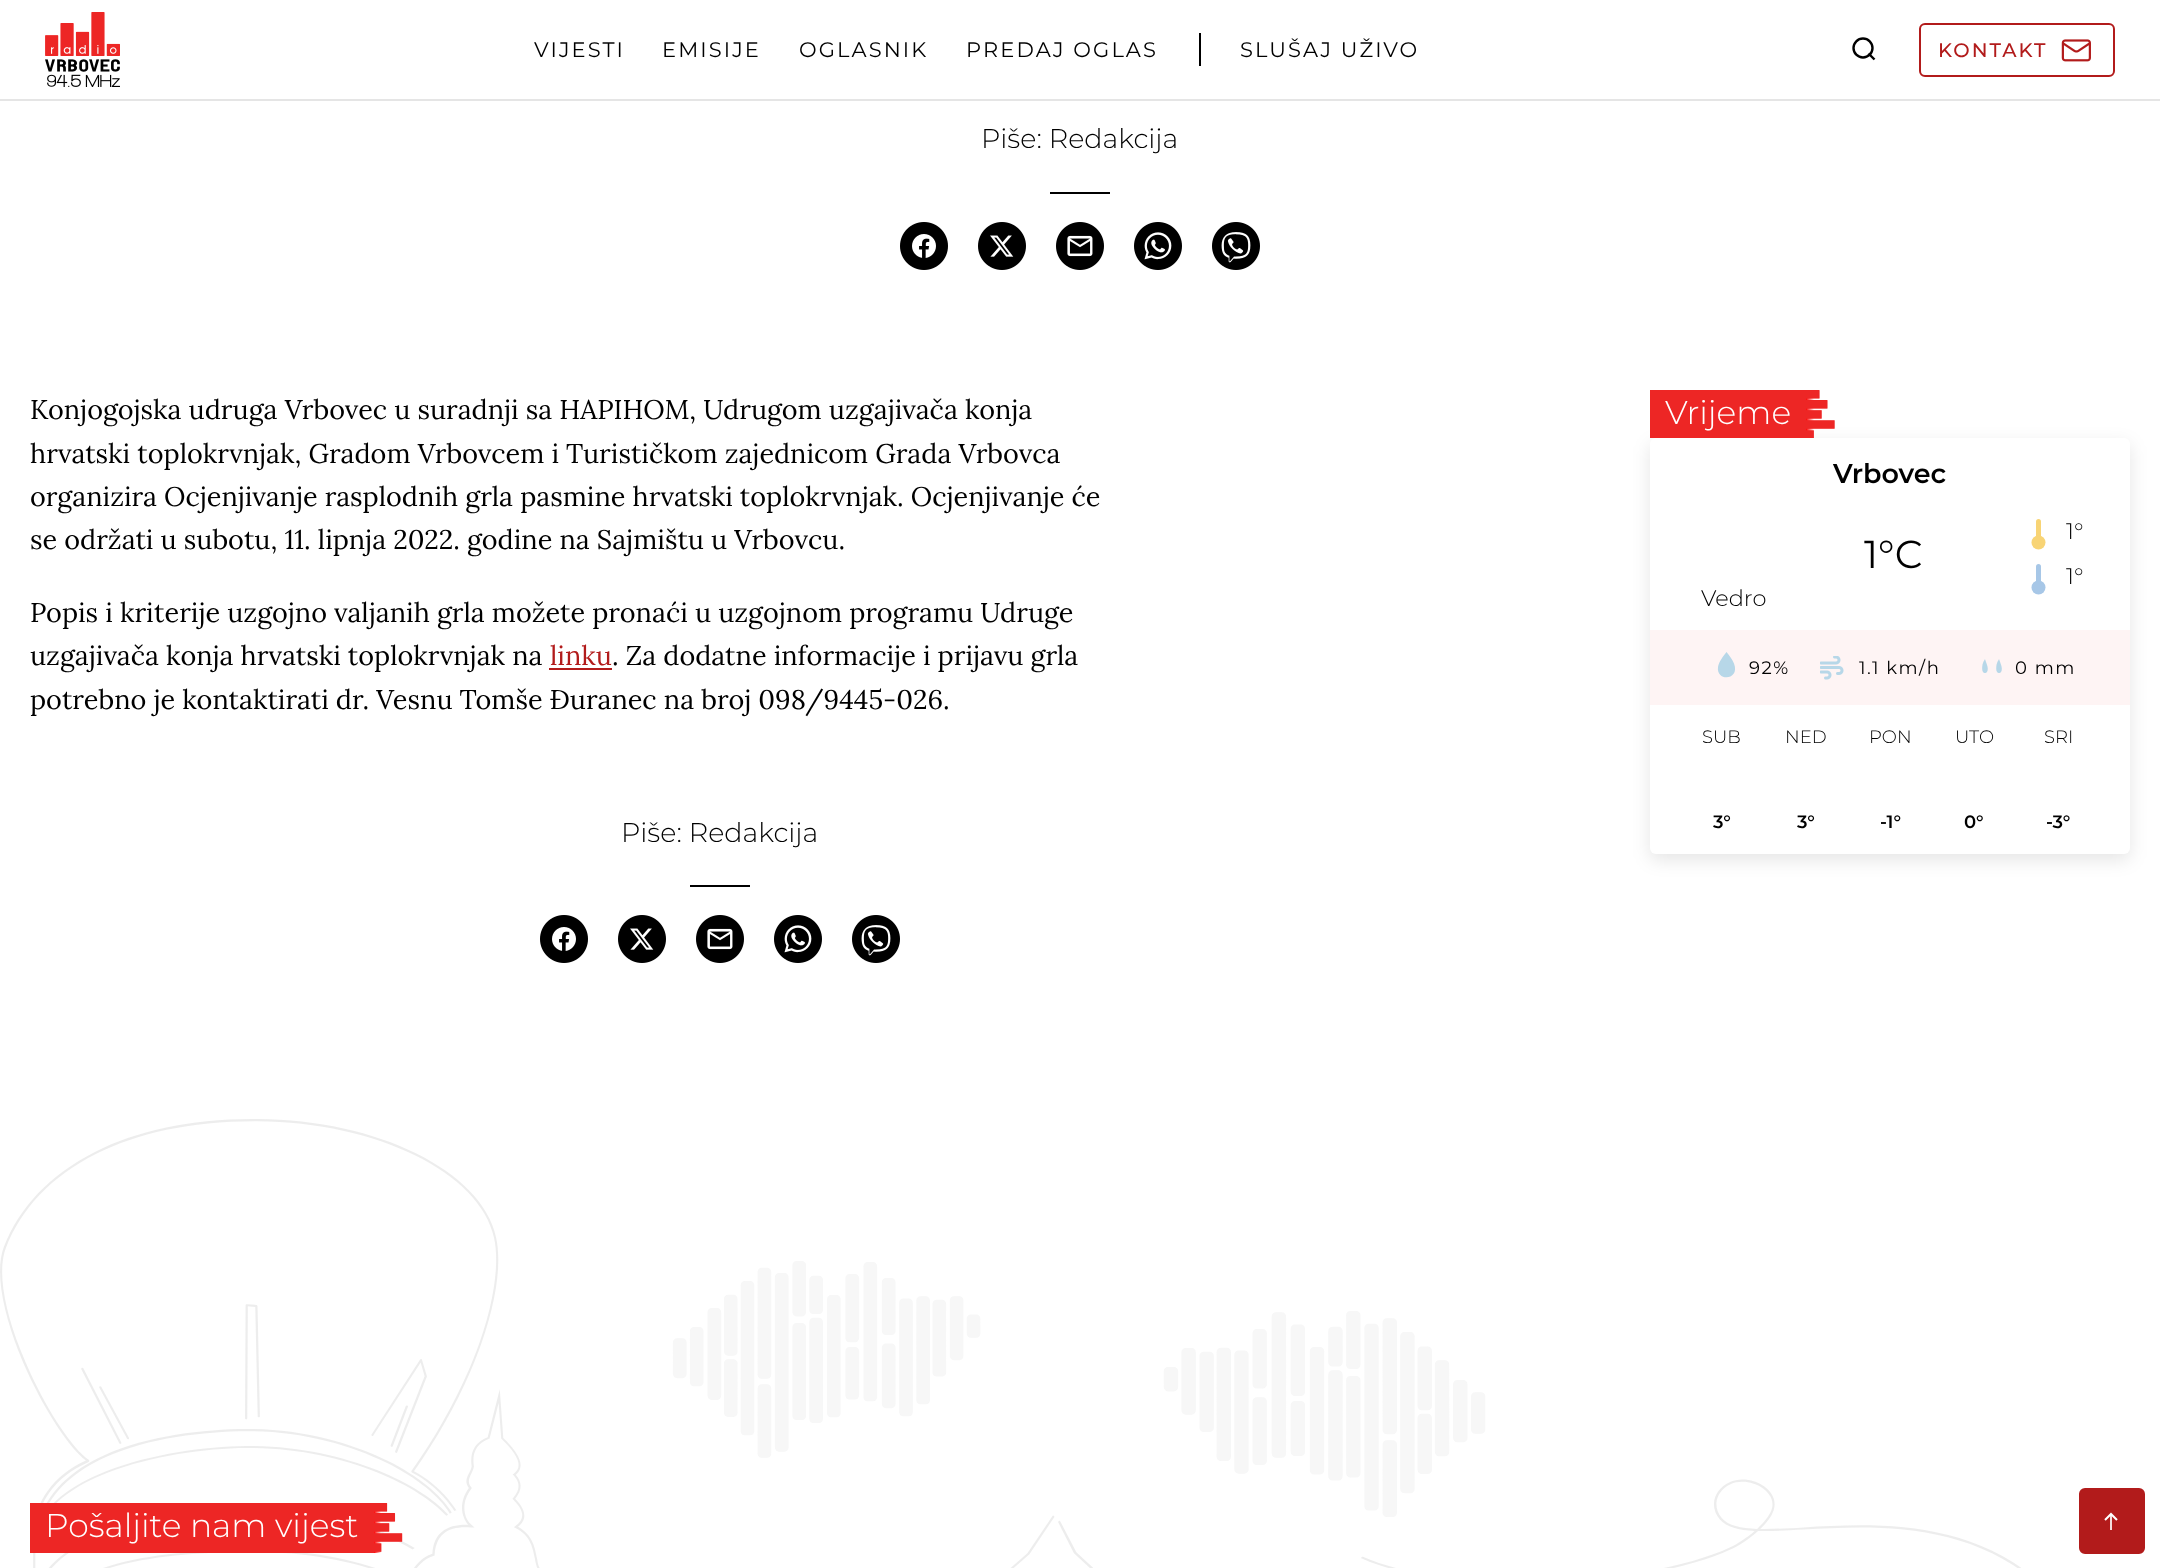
<svg xmlns="http://www.w3.org/2000/svg" xmlns:xlink="http://www.w3.org/1999/xlink" width="2160" height="1568" viewBox="0 0 2160 1568">
<style>
.cls-1{font:21px Montserrat;letter-spacing:2.1px;fill:#000000}
.cls-2{font:500 19.5px Montserrat;letter-spacing:2px;fill:#b21b1b}
.cls-3{font:300 27px Montserrat;fill:#000000}
.cls-4{font:27px Lora;fill:#000000}
.cls-5{font:27px Lora;fill:#b21b1b}
.cls-6{font:300 33px Montserrat;fill:#ffffff}
.cls-7{font:600 27px Montserrat;fill:#000000}
.cls-8{font:39px Montserrat;fill:#000000}
.cls-9{font:300 22.5px Montserrat;fill:#000000}
.cls-10{font:18px Montserrat;letter-spacing:1.5px;fill:#000000}
.cls-11{font:300 18px Montserrat;fill:#000000}
.cls-12{font:600 18px Montserrat;fill:#000000}
</style>
<defs>
<linearGradient id="g1" gradientUnits="userSpaceOnUse" x1="374" y1="1528" x2="381" y2="1528"><stop offset="0" stop-color="#ff0000"/><stop offset="1" stop-color="#ff0000" stop-opacity="0"/></linearGradient>
<linearGradient id="g2" gradientUnits="userSpaceOnUse" x1="1806" y1="414" x2="1814" y2="414"><stop offset="0" stop-color="#ff0000"/><stop offset="1" stop-color="#ffffff"/></linearGradient>
</defs>
<rect width="100%" height="100%" fill="#ffffff"/>
<rect fill="#e5e5e5" x="0" y="99" width="2160" height="2"/>
<image xlink:href="image0.png" x="45" y="12" width="75" height="75"/>
<rect fill="#000000" x="1199" y="33" width="2" height="33"/>
<circle fill="none" stroke="#000000" stroke-width="2.4" cx="1863" cy="48" r="9.5"/>
<path fill="none" stroke="#000000" stroke-width="2.4" d="M1868.5 53.5L1874.5 59.5"/>
<rect fill="none" stroke="#b21b1b" stroke-width="2" x="1920" y="24" width="194" height="52" rx="5"/>
<image xlink:href="image1.png" x="2061" y="39" width="30" height="23"/>
<rect fill="#000000" x="1050" y="192" width="60" height="2"/>
<image xlink:href="image2.png" x="900" y="222" width="48" height="48"/>
<image xlink:href="image3.png" x="978" y="222" width="48" height="48"/>
<image xlink:href="image4.png" x="1056" y="222" width="48" height="48"/>
<image xlink:href="image5.png" x="1134" y="222" width="48" height="48"/>
<image xlink:href="image6.png" x="1212" y="222" width="48" height="48"/>
<rect fill="#b21b1b" x="549" y="668" width="63" height="2"/>
<rect fill="#000000" x="690" y="885" width="60" height="2"/>
<image xlink:href="image2.png" x="540" y="915" width="48" height="48"/>
<image xlink:href="image3.png" x="618" y="915" width="48" height="48"/>
<image xlink:href="image4.png" x="696" y="915" width="48" height="48"/>
<image xlink:href="image5.png" x="774" y="915" width="48" height="48"/>
<image xlink:href="image6.png" x="852" y="915" width="48" height="48"/>
<image xlink:href="image11.png" x="0" y="1119" width="2021" height="449"/>
<rect fill="#ed2625" x="30" y="1503" width="344" height="50"/>
<rect fill="url(#g1)" x="374" y="1503" width="7" height="50"/>
<image xlink:href="image7.png" x="374" y="1503" width="29" height="49"/>
<rect fill="url(#g2)" x="1806" y="390" width="8" height="48"/>
<rect fill="#000000" fill-opacity="0.1" filter="blur(9px)" x="1650" y="444" width="480" height="416" rx="6"/>
<rect fill="#ed2625" x="1650" y="390" width="156" height="48"/>
<image xlink:href="image8.png" x="1806" y="390" width="29" height="48"/>
<rect fill="#ffffff" x="1650" y="438" width="480" height="416" rx="6"/>
<rect fill="#f8d475" x="2036" y="519" width="5" height="21" rx="2.5"/>
<circle fill="#f8d475" cx="2038.5" cy="542.5" r="7"/>
<rect fill="#a7c7e7" x="2036" y="564" width="5" height="21" rx="2.5"/>
<circle fill="#a7c7e7" cx="2038.5" cy="587.5" r="7"/>
<rect fill="#fef4f4" x="1650" y="630" width="480" height="75"/>
<path fill="#b7d7e8" d="M1726.5 652C1723 656.5 1719 661.5 1718 667C1716 682 1740.5 680.5 1734 663.5C1732 659 1729.5 655.5 1726.5 652Z"/>
<image xlink:href="image9.png" x="1820" y="656" width="24" height="24"/>
<image xlink:href="image10.png" x="1982" y="659" width="20" height="14"/>
<rect fill="#b21b1b" stroke="#b21b1b" stroke-width="2" x="2080" y="1489" width="64" height="64" rx="5"/>
<rect fill="#f3dddd" x="2110" y="1514" width="2" height="16"/>
<path fill="none" stroke="#ffffff" stroke-width="2" d="M2105 1520L2111 1514L2117 1520"/>
<text class="cls-1" x="534" y="57">VIJESTI</text>
<text class="cls-1" x="662" y="57">EMISIJE</text>
<text class="cls-1" x="799" y="57">OGLASNIK</text>
<text class="cls-1" x="966" y="57">PREDAJ OGLAS</text>
<text class="cls-1" x="1240" y="57">SLUŠAJ UŽIVO</text>
<text class="cls-2" x="1938" y="57">KONTAKT</text>
<text class="cls-3" x="981" y="148">Piše: Redakcija</text>
<text class="cls-4"><tspan x="30" y="419">Konjogojska udruga Vrbovec u suradnji sa HAPIHOM, Udrugom uzgajivača konja</tspan><tspan x="30" y="463">hrvatski toplokrvnjak, Gradom Vrbovcem i Turističkom zajednicom Grada Vrbovca</tspan><tspan x="30" y="506">organizira Ocjenjivanje rasplodnih grla pasmine hrvatski toplokrvnjak. Ocjenjivanje će</tspan><tspan x="30" y="549">se održati u subotu, 11. lipnja 2022. godine na Sajmištu u Vrbovcu.</tspan></text>
<text class="cls-4"><tspan x="30" y="622">Popis i kriterije uzgojno valjanih grla možete pronaći u uzgojnom programu Udruge</tspan><tspan x="30" y="665">uzgajivača konja hrvatski toplokrvnjak na</tspan></text>
<text class="cls-5" x="550" y="665">linku</text>
<text class="cls-4" x="612" y="665">. Za dodatne informacije i prijavu grla</text>
<text class="cls-4" x="30" y="709">potrebno je kontaktirati dr. Vesnu Tomše Đuranec na broj 098/9445-026.</text>
<text class="cls-3" x="621" y="842">Piše: Redakcija</text>
<text class="cls-6" x="45" y="1537">Pošaljite nam vijest</text>
<text class="cls-6" x="1665" y="424">Vrijeme</text>
<text class="cls-7" x="1833" y="483">Vrbovec</text>
<text class="cls-8" x="1864" y="568">1°C</text>
<text class="cls-9" x="2066" y="539">1°</text>
<text class="cls-9" x="2066" y="584">1°</text>
<text class="cls-9" x="1701" y="606">Vedro</text>
<text class="cls-10" x="1749" y="674">92%</text>
<text class="cls-10" x="1859" y="674">1.1 km/h</text>
<text class="cls-10" x="2015" y="674">0 mm</text>
<text class="cls-11" x="1702" y="743">SUB</text>
<text class="cls-12" x="1713" y="828">3°</text>
<text class="cls-11" x="1785" y="743">NED</text>
<text class="cls-12" x="1797" y="828">3°</text>
<text class="cls-11" x="1869" y="743">PON</text>
<text class="cls-12" x="1880" y="828">-1°</text>
<text class="cls-11" x="1955" y="743">UTO</text>
<text class="cls-12" x="1964" y="828">0°</text>
<text class="cls-11" x="2044" y="743">SRI</text>
<text class="cls-12" x="2046" y="828">-3°</text>
</svg>
